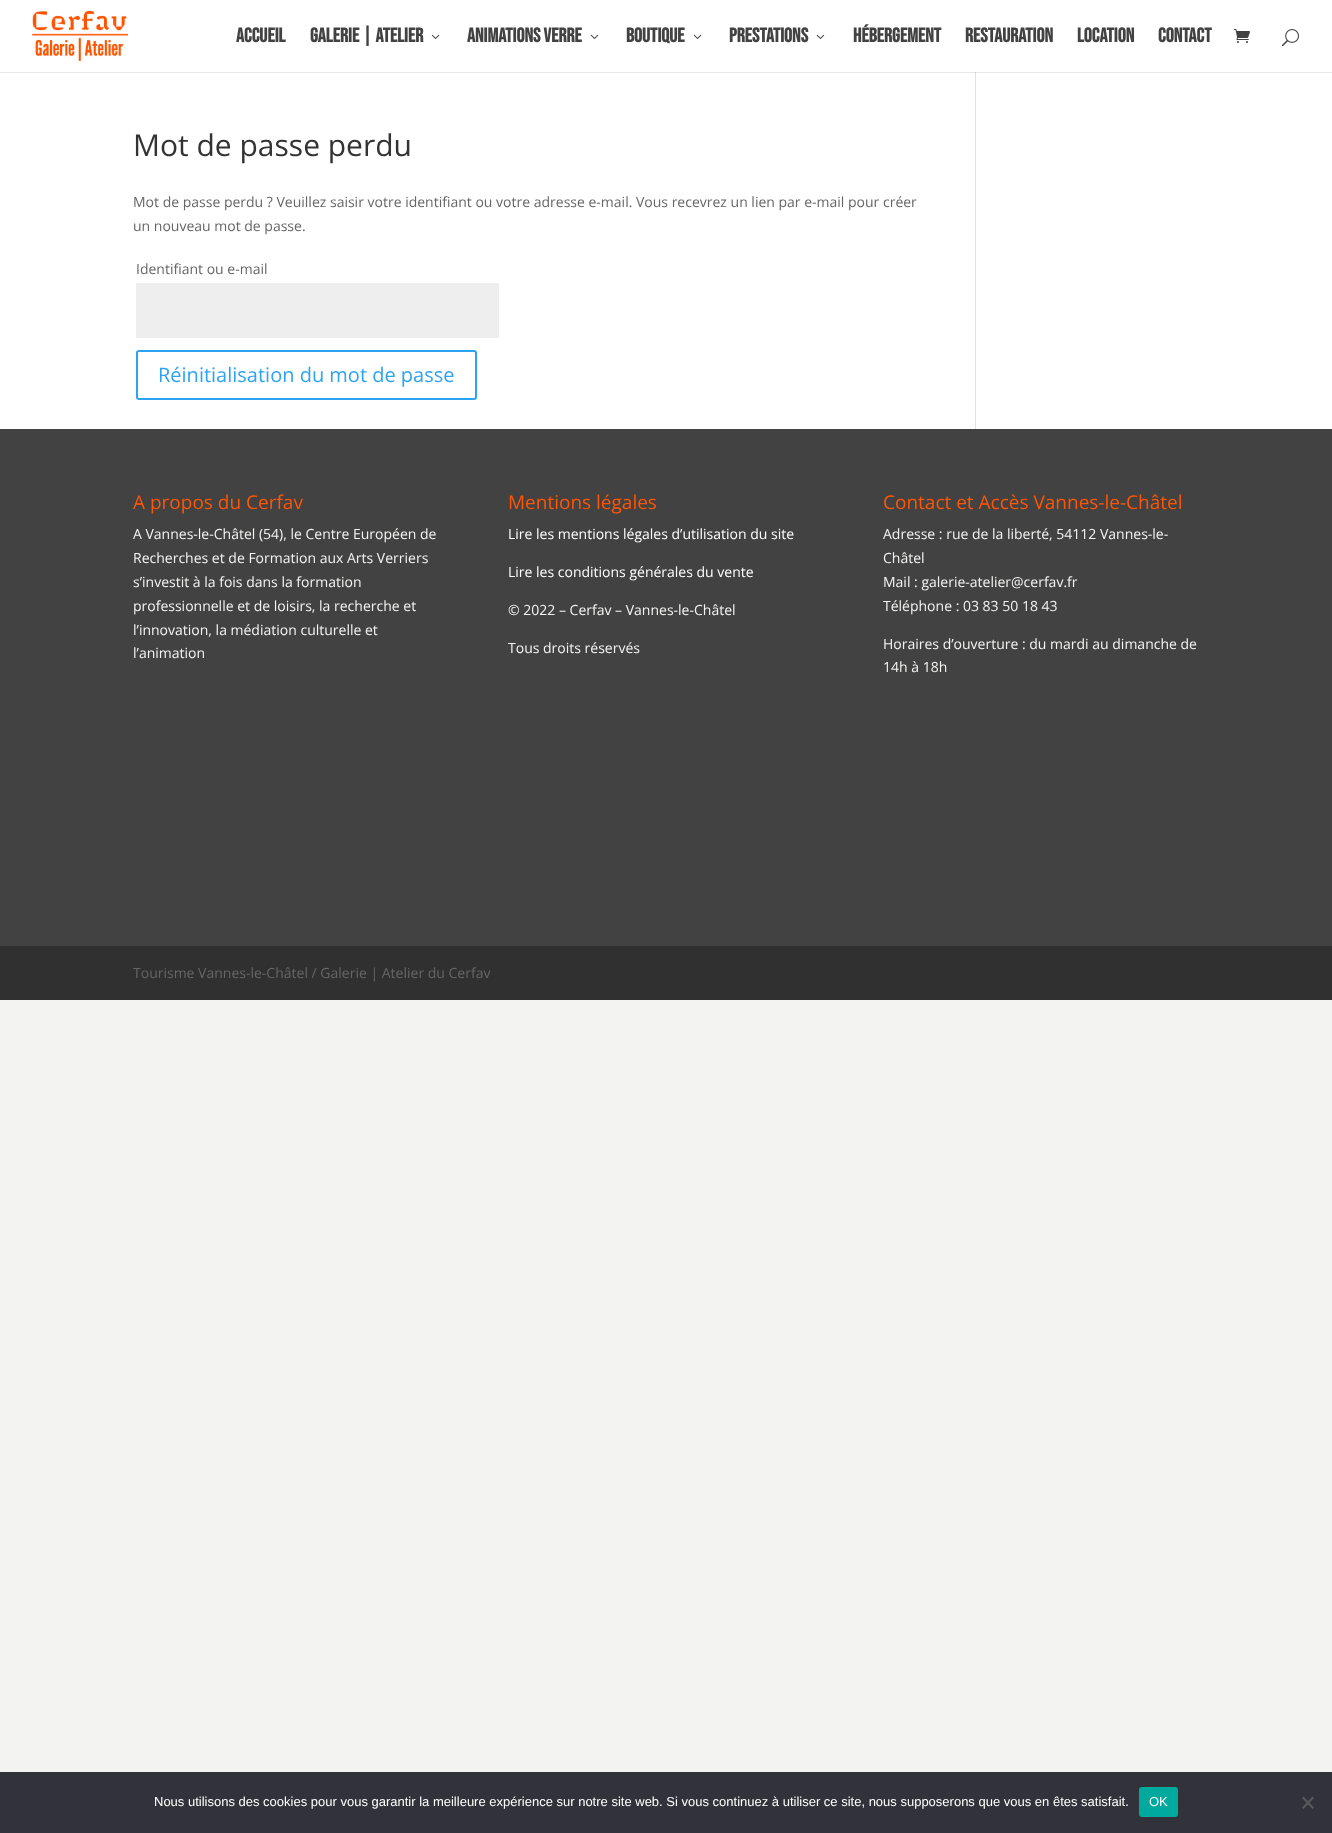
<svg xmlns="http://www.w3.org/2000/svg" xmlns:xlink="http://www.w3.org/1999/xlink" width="1332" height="1833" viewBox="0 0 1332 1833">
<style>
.cls-1{font:bold 20px Bebas Neue;fill:#424242}
.cls-2{font:30px Open Sans;fill:#333333}
.cls-3{font:14px Open Sans;fill:#666666}
.cls-4{font:20px Open Sans;fill:#2ea3f2}
.cls-5{font:19px Open Sans;fill:#ff5603}
.cls-6{font:14px Open Sans;fill:#f3f3f2}
.cls-7{font:14px Open Sans;fill:#ffffff}
.cls-8{font:13px Liberation Sans;fill:#ffffff}
</style>
<rect width="100%" height="100%" fill="#f3f3f2"/>
<rect fill="#ffffff" x="0" y="0" width="1332" height="72"/>
<image xlink:href="image0.png" x="32" y="11" width="96" height="50"/>
<image xlink:href="image1.png" x="431" y="34" width="9" height="5"/>
<image xlink:href="image1.png" x="590" y="34" width="9" height="5"/>
<image xlink:href="image1.png" x="693" y="34" width="9" height="5"/>
<image xlink:href="image1.png" x="816" y="34" width="9" height="5"/>
<image xlink:href="image2.png" x="1234" y="29" width="16" height="14"/>
<image xlink:href="image3.png" x="1282" y="29" width="17" height="18"/>
<rect fill="#ffffff" x="0" y="73" width="1332" height="356"/>
<rect fill="#e6e6e6" x="0" y="72" width="1332" height="1"/>
<rect fill="#eeeeee" x="136" y="283" width="363" height="55"/>
<rect fill="none" stroke="#2ea3f2" stroke-width="2" x="137" y="351" width="339" height="48" rx="2"/>
<rect fill="#e2e2e2" x="975" y="72" width="1" height="357"/>
<rect fill="#cbcbcb" x="975" y="72" width="1" height="1"/>
<rect fill="#424242" x="0" y="429" width="1332" height="517"/>
<rect fill="#303030" x="0" y="946" width="1332" height="54"/>
<rect fill="#32323a" x="0" y="1772" width="1332" height="61"/>
<rect fill="#00a99d" x="1139" y="1787" width="39" height="30" rx="3"/>
<path fill="#59595d" d="M1312.5 1796.5L1314 1798L1303.5 1809L1302 1807.5Z"/>
<path fill="#59595d" d="M1302 1798L1303.5 1796.5L1314 1807.5L1312.5 1809Z"/>
<text class="cls-1" x="236" y="42">Accueil</text>
<text class="cls-1" x="310" y="42">Galerie | Atelier</text>
<text class="cls-1" x="467" y="42">Animations Verre</text>
<text class="cls-1" x="626" y="42">Boutique</text>
<text class="cls-1" x="729" y="42">Prestations</text>
<text class="cls-1" x="853" y="42">Hébergement</text>
<text class="cls-1" x="965" y="42">Restauration</text>
<text class="cls-1" x="1077" y="42">Location</text>
<text class="cls-1" x="1158" y="42">Contact</text>
<text class="cls-2" x="133" y="156">Mot de passe perdu</text>
<text class="cls-3"><tspan x="133" y="207">Mot de passe perdu ? Veuillez saisir votre identifiant ou votre adresse e-mail. Vous recevrez un lien par e-mail pour créer</tspan><tspan x="133" y="231">un nouveau mot de passe.</tspan></text>
<text class="cls-3" x="136" y="274">Identifiant ou e-mail</text>
<text class="cls-4" x="158" y="382">Réinitialisation du mot de passe</text>
<text class="cls-5" x="133" y="509">A propos du Cerfav</text>
<text class="cls-6"><tspan x="133" y="539">A Vannes-le-Châtel (54), le Centre Européen de</tspan><tspan x="133" y="563">Recherches et de Formation aux Arts Verriers</tspan><tspan x="133" y="587">s’investit à la fois dans la formation</tspan><tspan x="133" y="611">professionnelle et de loisirs, la recherche et</tspan><tspan x="133" y="635">l’innovation, la médiation culturelle et</tspan><tspan x="133" y="658">l’animation</tspan></text>
<text class="cls-5" x="508" y="509">Mentions légales</text>
<text class="cls-7" x="508" y="539">Lire les mentions légales d’utilisation du site</text>
<text class="cls-7" x="508" y="577">Lire les conditions générales du vente</text>
<text class="cls-6" x="508" y="615">© 2022 – Cerfav – Vannes-le-Châtel</text>
<text class="cls-6" x="508" y="653">Tous droits réservés</text>
<text class="cls-5" x="883" y="509">Contact et Accès Vannes-le-Châtel</text>
<text class="cls-6"><tspan x="883" y="539">Adresse : rue de la liberté, 54112 Vannes-le-</tspan><tspan x="883" y="563">Châtel</tspan><tspan x="883" y="587">Mail : galerie-atelier@cerfav.fr</tspan><tspan x="883" y="611">Téléphone : 03 83 50 18 43</tspan></text>
<text class="cls-6"><tspan x="883" y="649">Horaires d’ouverture : du mardi au dimanche de</tspan><tspan x="883" y="672">14h à 18h</tspan></text>
<text class="cls-3" x="133" y="978">Tourisme Vannes-le-Châtel / Galerie | Atelier du Cerfav</text>
<text class="cls-8" x="154" y="1806">Nous utilisons des cookies pour vous garantir la meilleure expérience sur notre site web. Si vous continuez à utiliser ce site, nous supposerons que vous en êtes satisfait.</text>
<text class="cls-8" x="1149" y="1806">OK</text>
</svg>
